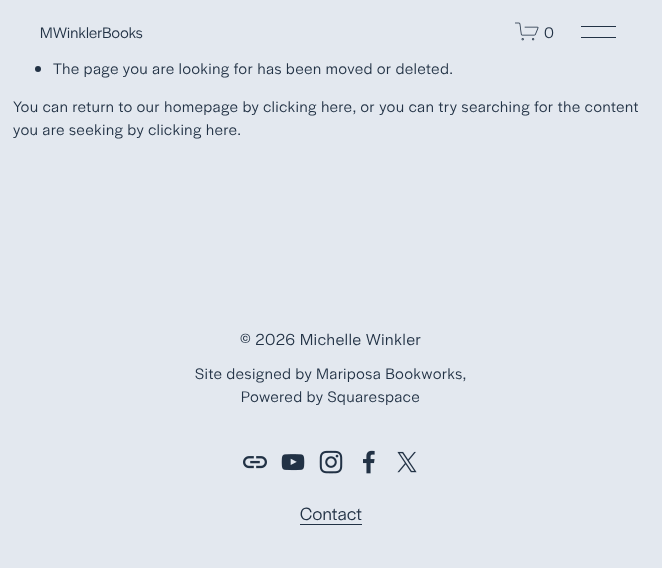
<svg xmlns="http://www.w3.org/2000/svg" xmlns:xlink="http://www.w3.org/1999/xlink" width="662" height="568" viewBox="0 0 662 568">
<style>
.cls-1{font:16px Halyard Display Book;letter-spacing:0.25px;fill:#223245}
.cls-2{font:16px Halyard Display Book;letter-spacing:0.8px;fill:#223245}
.cls-3{font:16.75px Halyard Display Book;letter-spacing:0.8px;fill:#223245}
.cls-4{font:18.5px Halyard Display Book;letter-spacing:0.5px;fill:#223245}
</style>
<rect width="100%" height="100%" fill="#e3e8ef"/>
<image xlink:href="image0.png" x="515" y="22" width="24" height="19"/>
<rect fill="#223245" x="581" y="26" width="35" height="1"/>
<rect fill="#223245" x="581" y="37" width="35" height="1"/>
<circle fill="#223245" cx="38" cy="69" r="3"/>
<image xlink:href="image1.png" x="243" y="456" width="24" height="13"/>
<image xlink:href="image2.png" x="281" y="454" width="24" height="17"/>
<image xlink:href="image3.png" x="319" y="450" width="24" height="24"/>
<image xlink:href="image4.png" x="363" y="450" width="12" height="24"/>
<image xlink:href="image5.png" x="397" y="451" width="20" height="22"/>
<rect fill="#223245" x="300" y="524" width="62" height="1"/>
<text class="cls-1" x="40" y="38">MWinklerBooks</text>
<text class="cls-2" x="544" y="38">0</text>
<text class="cls-2" x="53" y="74">The page you are looking for has been moved or deleted.</text>
<text class="cls-2"><tspan x="13" y="112">You can return to our homepage by clicking here, or you can try searching for the content</tspan><tspan x="13" y="135">you are seeking by clicking here.</tspan></text>
<text class="cls-3" x="240" y="345">© 2026 Michelle Winkler</text>
<text class="cls-2" x="195" y="379">Site designed by Mariposa Bookworks,</text>
<text class="cls-2" x="241" y="402">Powered by Squarespace</text>
<text class="cls-4" x="300" y="520">Contact</text>
</svg>
